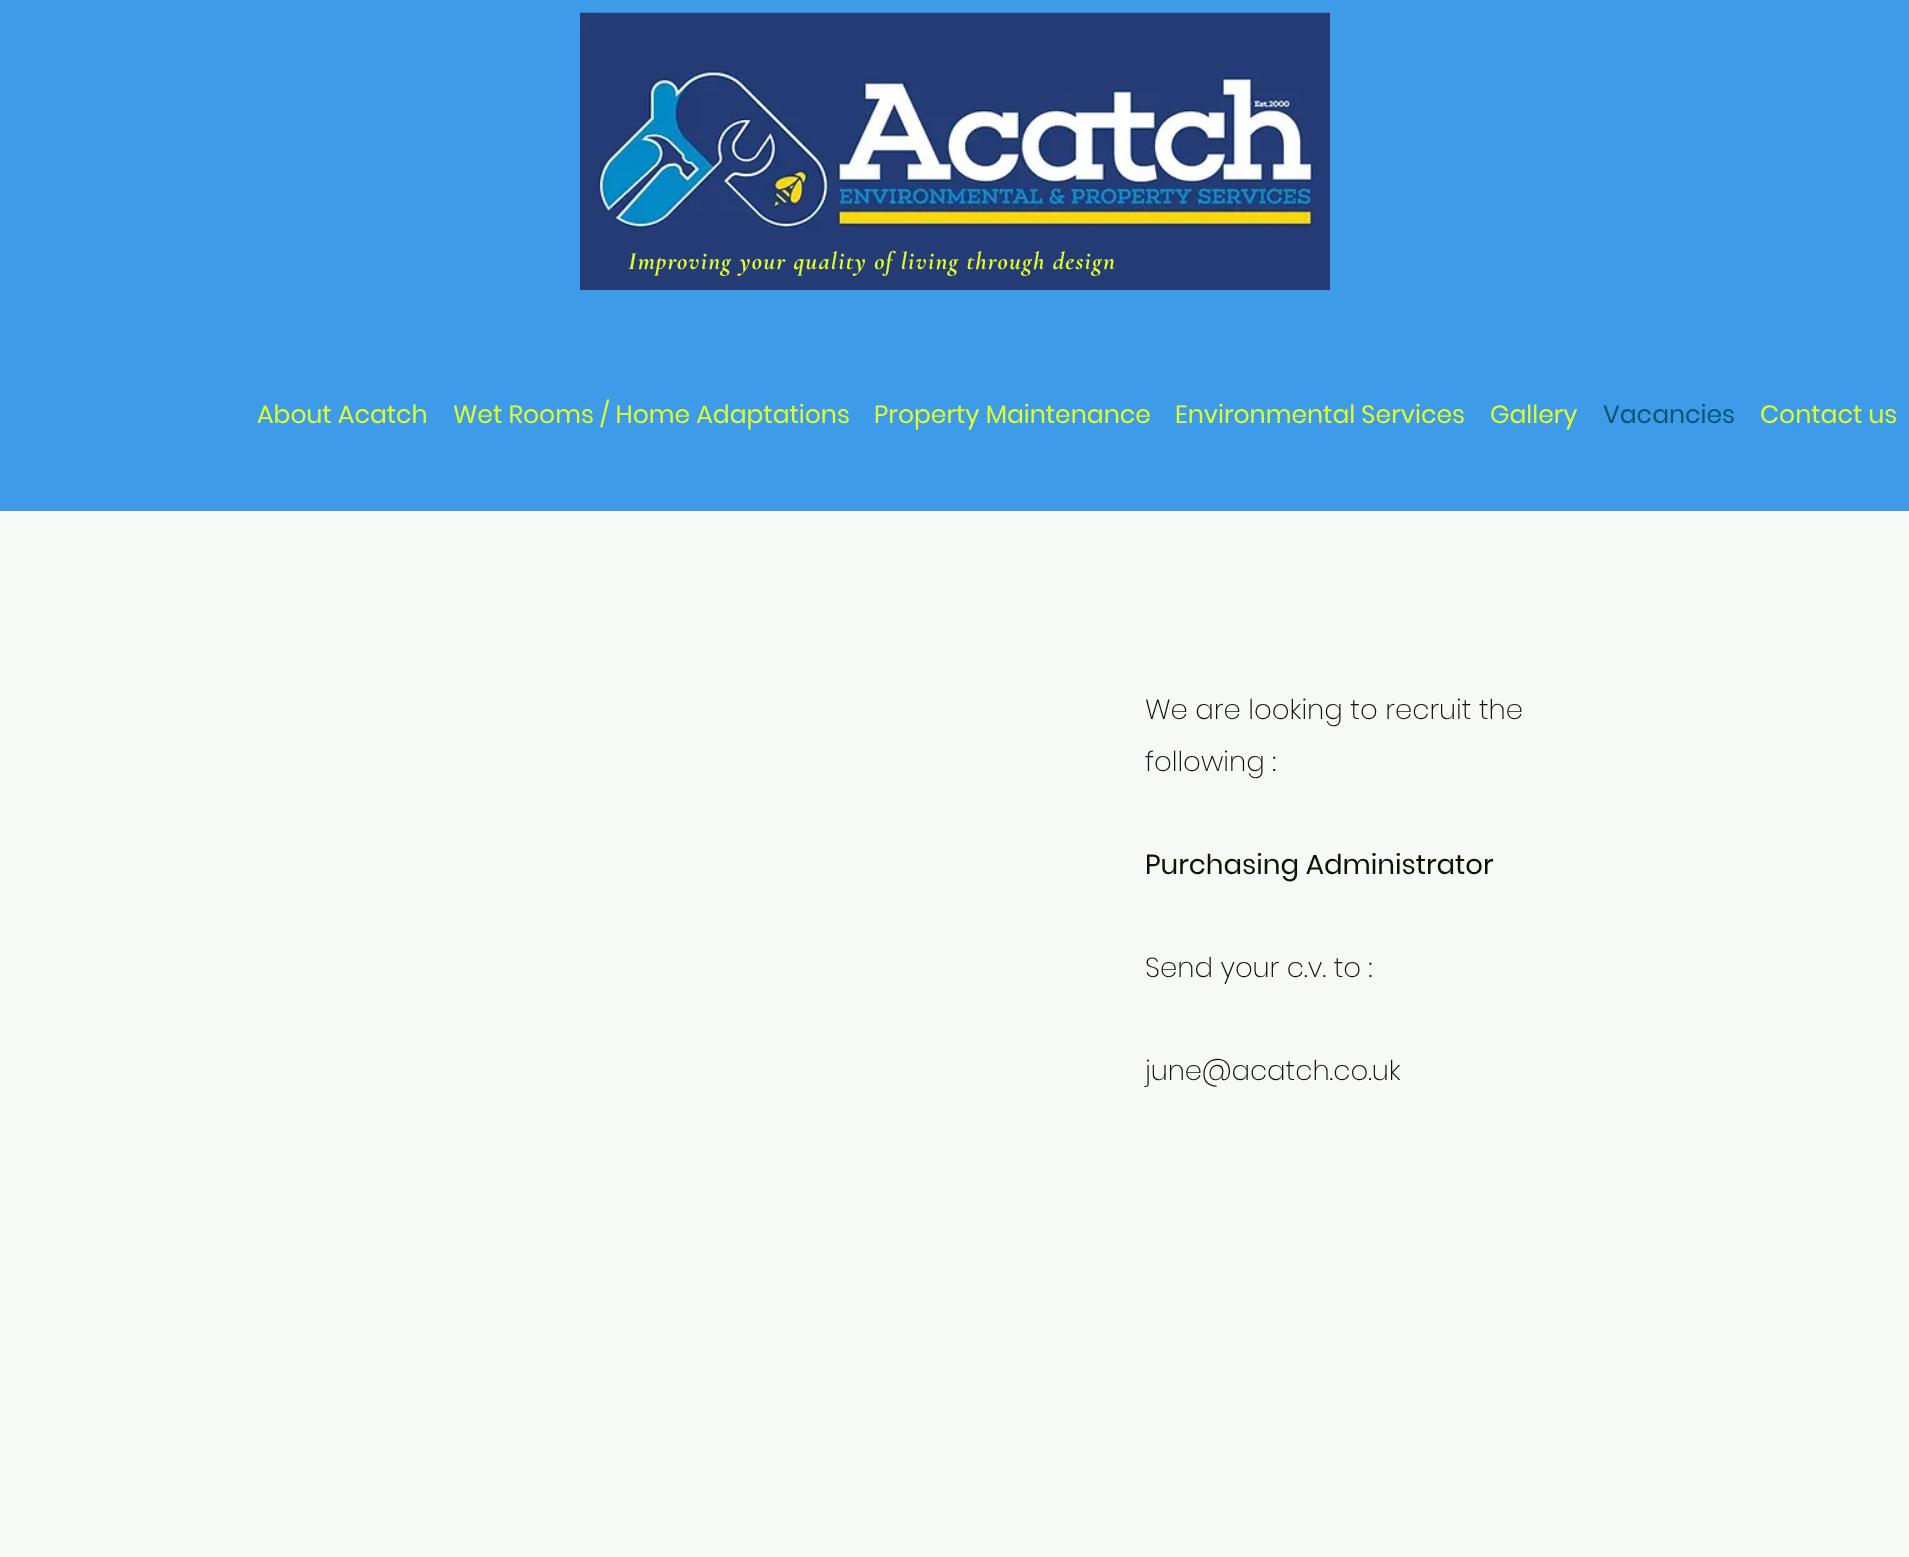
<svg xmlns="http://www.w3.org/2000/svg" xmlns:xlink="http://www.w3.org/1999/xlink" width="1909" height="1557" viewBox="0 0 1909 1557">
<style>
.cls-1{font:italic bold 25px Cormorant Garamond;letter-spacing:1.25px;fill:#e0fd2c}
.cls-2{font:25px Poppins;fill:#e0fd2c}
.cls-3{font:25px Poppins;fill:#035772}
.cls-4{font:200 27.5px Poppins;fill:#091405}
.cls-5{font:27.5px Poppins;fill:#091405}
</style>
<rect width="100%" height="100%" fill="#f6f9f5"/>
<rect fill="#3d9be9" x="0" y="0" width="1909" height="511"/>
<image xlink:href="image0.png" x="580" y="12" width="750" height="278"/>
<text class="cls-1" x="628" y="269">Improving your quality of living through design</text>
<text class="cls-2" x="257" y="423">About Acatch</text>
<text class="cls-2" x="453" y="423">Wet Rooms / Home Adaptations</text>
<text class="cls-2" x="874" y="423">Property Maintenance</text>
<text class="cls-2" x="1175" y="423">Environmental Services</text>
<text class="cls-2" x="1490" y="423">Gallery</text>
<text class="cls-3" x="1603" y="423">Vacancies</text>
<text class="cls-2" x="1760" y="423">Contact us</text>
<text class="cls-4"><tspan x="1145" y="719">We are looking to recruit the</tspan><tspan x="1145" y="771">following :</tspan></text>
<text class="cls-5" x="1145" y="874">Purchasing Administrator</text>
<text class="cls-4" x="1145" y="977">Send your c.v. to :</text>
<text class="cls-4" x="1145" y="1080">june@acatch.co.uk</text>
</svg>
